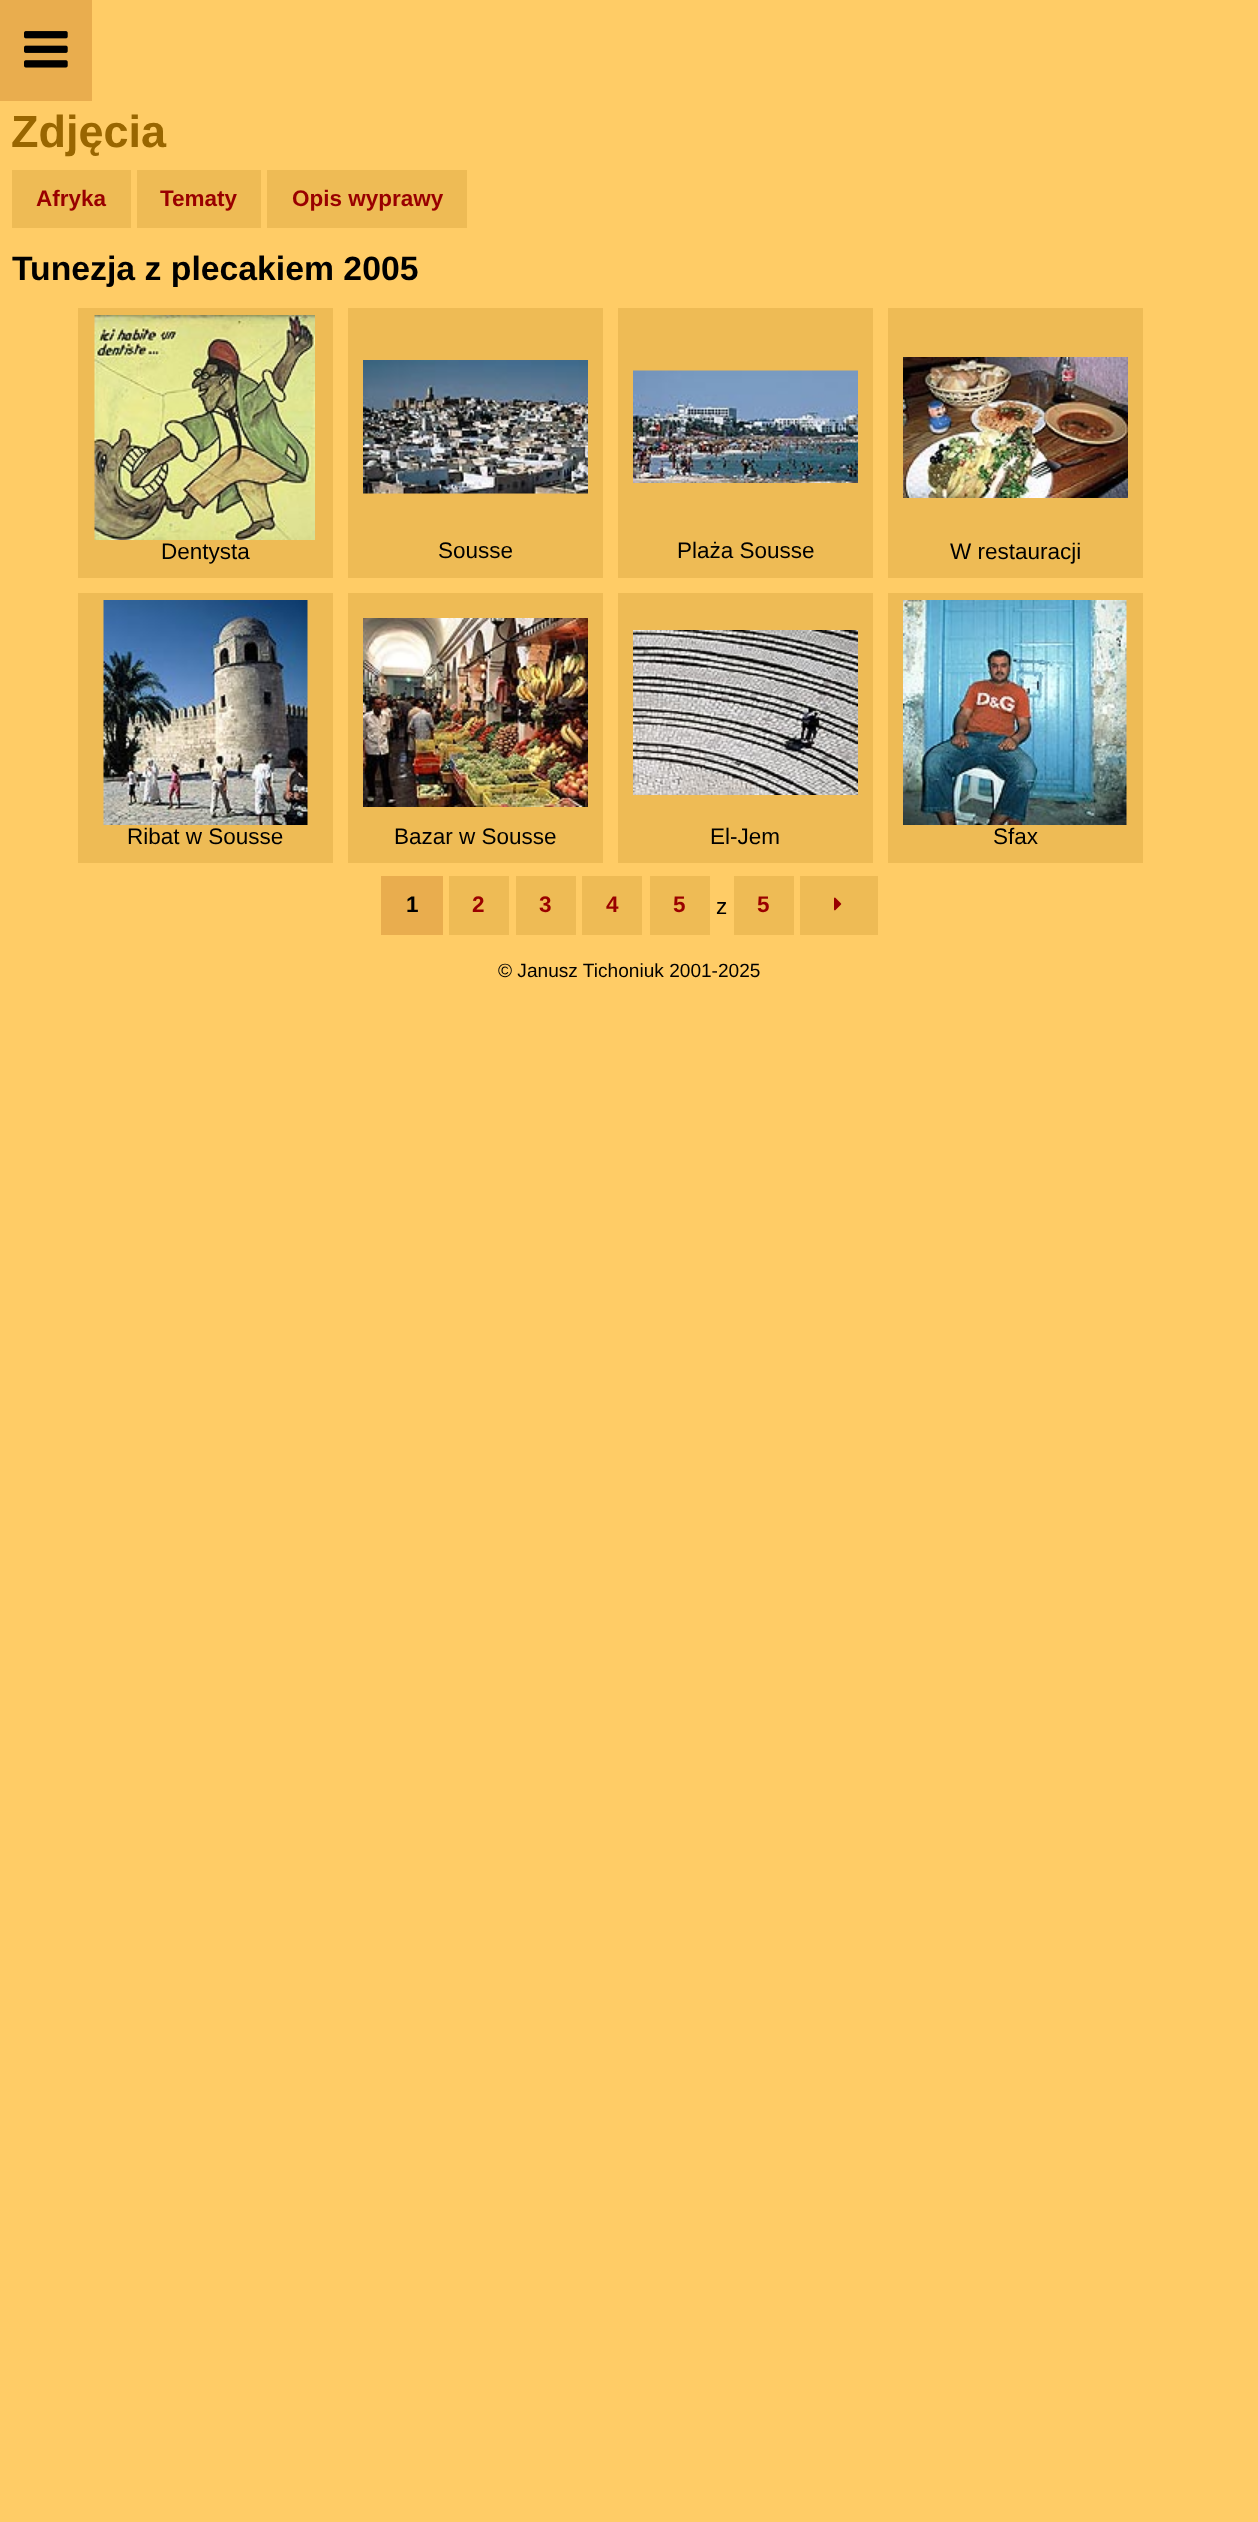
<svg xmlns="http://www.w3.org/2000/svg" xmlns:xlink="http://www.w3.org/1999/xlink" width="1258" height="2522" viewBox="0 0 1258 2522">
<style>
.cls-1{font:bold 45px Liberation Sans;fill:#996600}
.cls-2{font:bold 22.5px Liberation Sans;fill:#990000}
.cls-3{font:bold 33.75px Liberation Sans;fill:#000000}
.cls-4{font:22.5px Liberation Sans;fill:#000000}
.cls-5{font:bold 22.5px Liberation Sans;fill:#000000}
.cls-6{font:19.1px Liberation Sans;fill:#000000}
</style>
<rect width="100%" height="100%" fill="#ffcc66"/>
<rect fill="#e9ad4e" x="0" y="0" width="92" height="101"/>
<image xlink:href="image0.png" x="24" y="31" width="44" height="37"/>
<rect fill="#eebb55" x="12" y="170" width="119" height="58"/>
<rect fill="#eebb55" x="137" y="170" width="124" height="58"/>
<rect fill="#eebb55" x="267" y="170" width="200" height="58"/>
<rect fill="#eebb55" x="78" y="308" width="255" height="270"/>
<image xlink:href="image1.png" x="94" y="315" width="221" height="225"/>
<rect fill="#eebb55" x="348" y="308" width="255" height="270"/>
<image xlink:href="image2.png" x="363" y="360" width="225" height="134"/>
<rect fill="#eebb55" x="618" y="308" width="255" height="270"/>
<image xlink:href="image3.png" x="633" y="370" width="225" height="113"/>
<rect fill="#eebb55" x="888" y="308" width="255" height="270"/>
<image xlink:href="image4.png" x="903" y="357" width="225" height="141"/>
<rect fill="#eebb55" x="78" y="593" width="255" height="270"/>
<image xlink:href="image5.png" x="103" y="600" width="205" height="225"/>
<rect fill="#eebb55" x="348" y="593" width="255" height="270"/>
<image xlink:href="image6.png" x="363" y="618" width="225" height="189"/>
<rect fill="#eebb55" x="618" y="593" width="255" height="270"/>
<image xlink:href="image7.png" x="633" y="630" width="225" height="165"/>
<rect fill="#eebb55" x="888" y="593" width="255" height="270"/>
<image xlink:href="image8.png" x="903" y="600" width="224" height="225"/>
<rect fill="#e9ad4e" x="381" y="876" width="62" height="59"/>
<rect fill="#eebb55" x="449" y="876" width="60" height="59"/>
<rect fill="#eebb55" x="516" y="876" width="60" height="59"/>
<rect fill="#eebb55" x="582" y="876" width="60" height="59"/>
<rect fill="#eebb55" x="650" y="876" width="60" height="59"/>
<rect fill="#eebb55" x="734" y="876" width="60" height="59"/>
<rect fill="#eebb55" x="800" y="876" width="78" height="59"/>
<image xlink:href="image9.png" x="834" y="897" width="8" height="14"/>
<text class="cls-1" x="11" y="147">Zdjęcia</text>
<text class="cls-2" x="36" y="206">Afryka</text>
<text class="cls-2" x="160" y="206">Tematy</text>
<text class="cls-2" x="292" y="206">Opis wyprawy</text>
<text class="cls-3" x="12" y="280">Tunezja z plecakiem 2005</text>
<text class="cls-4" x="161" y="559">Dentysta</text>
<text class="cls-4" x="438" y="558">Sousse</text>
<text class="cls-4" x="677" y="558">Plaża Sousse</text>
<text class="cls-4" x="950" y="559">W restauracji</text>
<text class="cls-4" x="127" y="844">Ribat w Sousse</text>
<text class="cls-4" x="394" y="844">Bazar w Sousse</text>
<text class="cls-4" x="710" y="844">El-Jem</text>
<text class="cls-4" x="993" y="844">Sfax</text>
<text class="cls-5" x="406" y="912">1</text>
<text class="cls-2" x="472" y="912">2</text>
<text class="cls-2" x="539" y="912">3</text>
<text class="cls-2" x="606" y="912">4</text>
<text class="cls-2" x="673" y="912">5</text>
<text class="cls-4" x="716" y="914">z</text>
<text class="cls-2" x="757" y="912">5</text>
<text class="cls-6" x="498" y="977">© Janusz Tichoniuk 2001-2025</text>
</svg>
